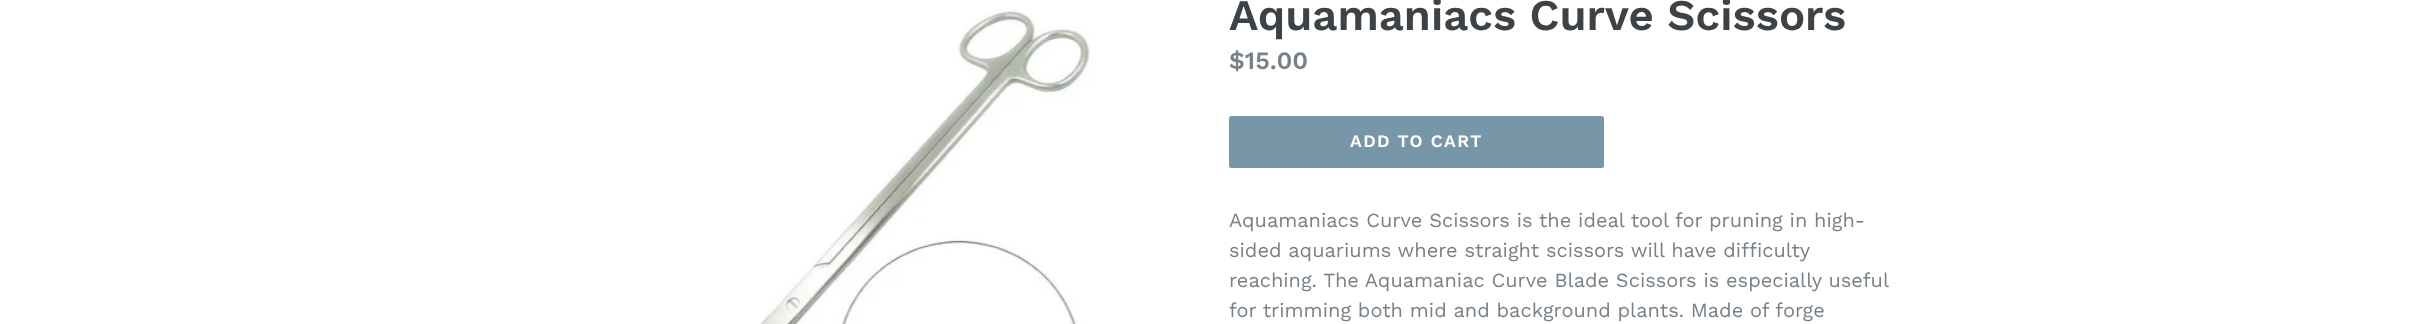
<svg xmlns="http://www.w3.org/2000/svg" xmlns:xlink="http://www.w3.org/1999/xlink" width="2420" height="324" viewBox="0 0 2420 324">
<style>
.cls-1{font:600 43.75px Work Sans;fill:#3d4246}
.cls-2{font:600 25px Work Sans;fill:#788188}
.cls-3{font:600 17.5px Work Sans;letter-spacing:1.4px;fill:#ffffff}
.cls-4{font:20px Work Sans;fill:#788188}
</style>
<rect width="100%" height="100%" fill="#ffffff"/>
<image xlink:href="image0.png" x="760" y="8" width="333" height="316"/>
<rect fill="#7796a8" x="1229" y="116" width="375" height="52" rx="2.5"/>
<text class="cls-1" x="1229" y="30">Aquamaniacs Curve Scissors</text>
<text class="cls-2" x="1229" y="69">$15.00</text>
<text class="cls-3" x="1350" y="147">ADD TO CART</text>
<text class="cls-4"><tspan x="1229" y="227">Aquamaniacs Curve Scissors is the ideal tool for pruning in high-</tspan><tspan x="1229" y="257">sided aquariums where straight scissors will have difficulty</tspan><tspan x="1229" y="287">reaching. The Aquamaniac Curve Blade Scissors is especially useful</tspan><tspan x="1229" y="317">for trimming both mid and background plants. Made of forge</tspan></text>
</svg>
